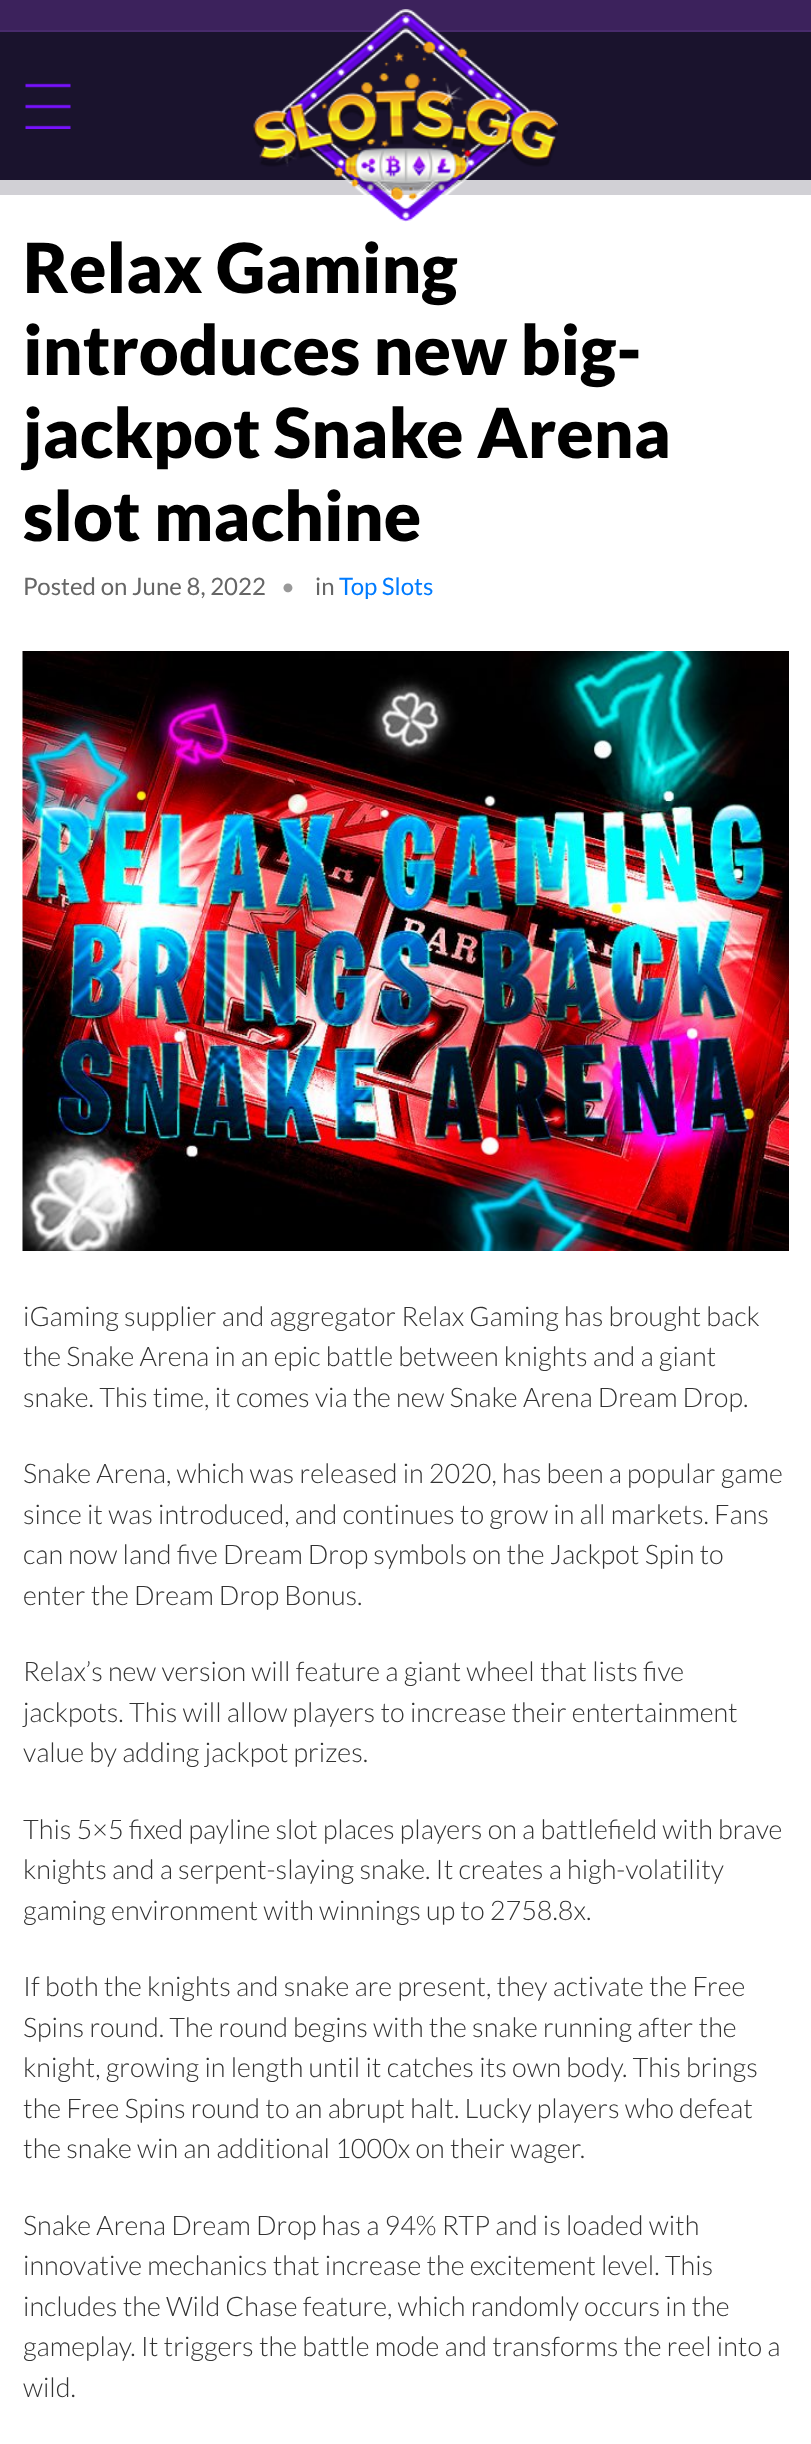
<svg xmlns="http://www.w3.org/2000/svg" xmlns:xlink="http://www.w3.org/1999/xlink" width="811" height="2444" viewBox="0 0 811 2444">
<style>
.cls-1{font:900 69px Lato;fill:#000000}
.cls-2{font:24px Lato;fill:#666666}
.cls-3{font:24px Lato;fill:#999999}
.cls-4{font:24px Lato;fill:#007bff}
.cls-5{font:300 27px Lato;fill:#333333}
</style>
<rect width="100%" height="100%" fill="#ffffff"/>
<rect fill="#1a132d" x="0" y="32" width="811" height="148"/>
<rect fill="#482b6c" x="0" y="30" width="811" height="2"/>
<rect fill="#3c225c" x="0" y="0" width="811" height="30"/>
<image xlink:href="image0.png" x="25" y="83" width="46" height="46"/>
<rect fill="#d1d0d5" x="0" y="180" width="811" height="15"/>
<image xlink:href="image1.png" x="253" y="9" width="305" height="213"/>
<image xlink:href="image2.png" x="22" y="651" width="767" height="600"/>
<text class="cls-1"><tspan x="23" y="293">Relax Gaming</tspan><tspan x="23" y="375">introduces new big-</tspan><tspan x="23" y="458">jackpot Snake Arena</tspan><tspan x="23" y="541">slot machine</tspan></text>
<text class="cls-2" x="23" y="595">Posted on June 8, 2022</text>
<text class="cls-3" x="281" y="595">•</text>
<text class="cls-2" x="315" y="595">in</text>
<text class="cls-4" x="339" y="595">Top Slots</text>
<text class="cls-5"><tspan x="23" y="1326">iGaming supplier and aggregator Relax Gaming has brought back</tspan><tspan x="23" y="1366">the Snake Arena in an epic battle between knights and a giant</tspan><tspan x="23" y="1407">snake. This time, it comes via the new Snake Arena Dream Drop.</tspan></text>
<text class="cls-5"><tspan x="23" y="1483">Snake Arena, which was released in 2020, has been a popular game</tspan><tspan x="23" y="1524">since it was introduced, and continues to grow in all markets. Fans</tspan><tspan x="23" y="1564">can now land five Dream Drop symbols on the Jackpot Spin to</tspan><tspan x="23" y="1605">enter the Dream Drop Bonus.</tspan></text>
<text class="cls-5"><tspan x="23" y="1681">Relax’s new version will feature a giant wheel that lists five</tspan><tspan x="23" y="1722">jackpots. This will allow players to increase their entertainment</tspan><tspan x="23" y="1762">value by adding jackpot prizes.</tspan></text>
<text class="cls-5"><tspan x="23" y="1839">This 5×5 fixed payline slot places players on a battlefield with brave</tspan><tspan x="23" y="1879">knights and a serpent-slaying snake. It creates a high-volatility</tspan><tspan x="23" y="1920">gaming environment with winnings up to 2758.8x.</tspan></text>
<text class="cls-5"><tspan x="23" y="1996">If both the knights and snake are present, they activate the Free</tspan><tspan x="23" y="2037">Spins round. The round begins with the snake running after the</tspan><tspan x="23" y="2077">knight, growing in length until it catches its own body. This brings</tspan><tspan x="23" y="2118">the Free Spins round to an abrupt halt. Lucky players who defeat</tspan><tspan x="23" y="2158">the snake win an additional 1000x on their wager.</tspan></text>
<text class="cls-5"><tspan x="23" y="2235">Snake Arena Dream Drop has a 94% RTP and is loaded with</tspan><tspan x="23" y="2275">innovative mechanics that increase the excitement level. This</tspan><tspan x="23" y="2316">includes the Wild Chase feature, which randomly occurs in the</tspan><tspan x="23" y="2356">gameplay. It triggers the battle mode and transforms the reel into a</tspan><tspan x="23" y="2397">wild.</tspan></text>
</svg>
